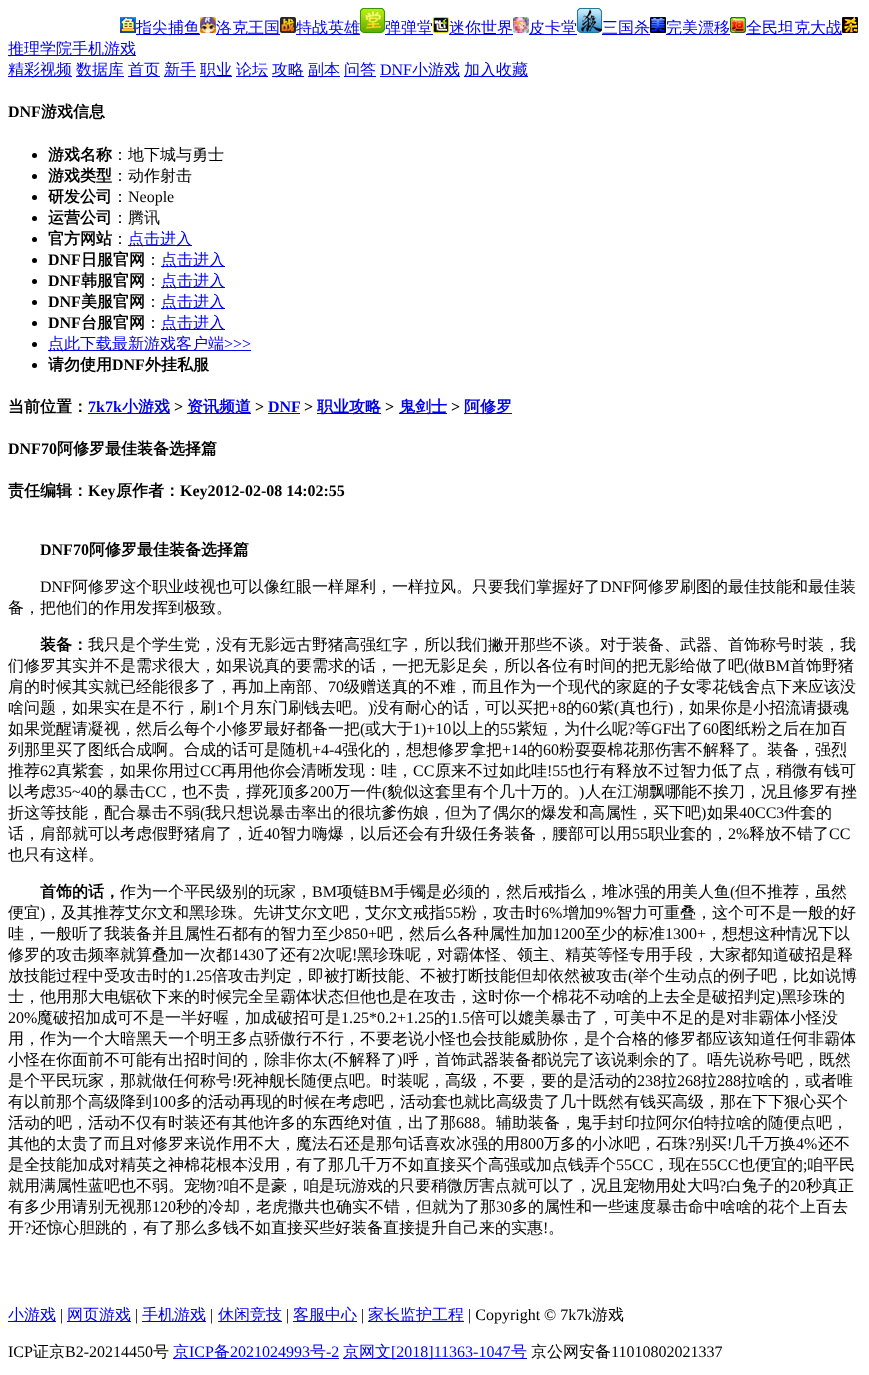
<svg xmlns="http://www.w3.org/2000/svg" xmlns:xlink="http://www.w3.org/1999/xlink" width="869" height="1375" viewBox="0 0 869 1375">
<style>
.cls-1{font:500 16px WenQuanYi Zen Hei;fill:#0000ee}
.cls-2{font:16px Liberation Serif;fill:#0000ee}
.cls-3{font:bold 16px Liberation Serif;fill:#000000}
.cls-4{font:bold 16px WenQuanYi Zen Hei;fill:#000000}
.cls-5{font:500 16px WenQuanYi Zen Hei;fill:#000000}
.cls-6{font:16px Liberation Serif;fill:#000000}
.cls-7{font:bold 16px Liberation Serif;fill:#0000ee}
.cls-8{font:bold 16px WenQuanYi Zen Hei;fill:#0000ee}
</style>
<rect width="100%" height="100%" fill="#ffffff"/>
<image xlink:href="image0.png" x="120" y="17" width="16" height="16"/>
<rect fill="#0000ee" x="136" y="34" width="64" height="1"/>
<image xlink:href="image1.png" x="200" y="17" width="16" height="16"/>
<rect fill="#0000ee" x="216" y="34" width="64" height="1"/>
<image xlink:href="image2.png" x="280" y="17" width="16" height="16"/>
<rect fill="#0000ee" x="296" y="34" width="64" height="1"/>
<image xlink:href="image3.png" x="360" y="8" width="25" height="25"/>
<rect fill="#0000ee" x="385" y="34" width="48" height="1"/>
<image xlink:href="image4.png" x="433" y="17" width="16" height="16"/>
<rect fill="#0000ee" x="449" y="34" width="64" height="1"/>
<image xlink:href="image5.png" x="513" y="17" width="16" height="16"/>
<rect fill="#0000ee" x="529" y="34" width="48" height="1"/>
<image xlink:href="image6.png" x="577" y="8" width="25" height="25"/>
<rect fill="#0000ee" x="602" y="34" width="48" height="1"/>
<image xlink:href="image7.png" x="650" y="17" width="16" height="16"/>
<rect fill="#0000ee" x="666" y="34" width="64" height="1"/>
<image xlink:href="image8.png" x="730" y="17" width="16" height="16"/>
<rect fill="#0000ee" x="746" y="34" width="96" height="1"/>
<image xlink:href="image9.png" x="842" y="17" width="16" height="16"/>
<rect fill="#0000ee" x="8" y="55" width="128" height="1"/>
<rect fill="#0000ee" x="8" y="76" width="64" height="1"/>
<rect fill="#0000ee" x="76" y="76" width="48" height="1"/>
<rect fill="#0000ee" x="128" y="76" width="32" height="1"/>
<rect fill="#0000ee" x="164" y="76" width="32" height="1"/>
<rect fill="#0000ee" x="200" y="76" width="32" height="1"/>
<rect fill="#0000ee" x="236" y="76" width="32" height="1"/>
<rect fill="#0000ee" x="272" y="76" width="32" height="1"/>
<rect fill="#0000ee" x="308" y="76" width="32" height="1"/>
<rect fill="#0000ee" x="344" y="76" width="32" height="1"/>
<rect fill="#0000ee" x="380" y="76" width="80" height="1"/>
<rect fill="#0000ee" x="464" y="76" width="64" height="1"/>
<circle fill="#000000" cx="34.5" cy="155.5" r="2.5"/>
<circle fill="#000000" cx="34.5" cy="176.5" r="2.5"/>
<circle fill="#000000" cx="34.5" cy="197.5" r="2.5"/>
<circle fill="#000000" cx="34.5" cy="218.5" r="2.5"/>
<circle fill="#000000" cx="34.5" cy="239.5" r="2.5"/>
<rect fill="#0000ee" x="128" y="245" width="64" height="1"/>
<circle fill="#000000" cx="34.5" cy="260.5" r="2.5"/>
<rect fill="#0000ee" x="161" y="266" width="64" height="1"/>
<circle fill="#000000" cx="34.5" cy="281.5" r="2.5"/>
<rect fill="#0000ee" x="161" y="287" width="64" height="1"/>
<circle fill="#000000" cx="34.5" cy="302.5" r="2.5"/>
<rect fill="#0000ee" x="161" y="308" width="64" height="1"/>
<circle fill="#000000" cx="34.5" cy="323.5" r="2.5"/>
<rect fill="#0000ee" x="161" y="329" width="64" height="1"/>
<circle fill="#000000" cx="34.5" cy="344.5" r="2.5"/>
<rect fill="#0000ee" x="48" y="350" width="203" height="1"/>
<circle fill="#000000" cx="34.5" cy="365.5" r="2.5"/>
<rect fill="#0000ee" x="88" y="413" width="82" height="1"/>
<rect fill="#0000ee" x="187" y="413" width="64" height="1"/>
<rect fill="#0000ee" x="268" y="413" width="32" height="1"/>
<rect fill="#0000ee" x="317" y="413" width="64" height="1"/>
<rect fill="#0000ee" x="399" y="413" width="48" height="1"/>
<rect fill="#0000ee" x="464" y="413" width="48" height="1"/>
<rect fill="#0000ee" x="8" y="1321" width="48" height="1"/>
<rect fill="#0000ee" x="67" y="1321" width="64" height="1"/>
<rect fill="#0000ee" x="142" y="1321" width="64" height="1"/>
<rect fill="#0000ee" x="218" y="1321" width="64" height="1"/>
<rect fill="#0000ee" x="293" y="1321" width="64" height="1"/>
<rect fill="#0000ee" x="368" y="1321" width="96" height="1"/>
<rect fill="#0000ee" x="173" y="1358" width="166" height="1"/>
<rect fill="#0000ee" x="343" y="1358" width="184" height="1"/>
<text class="cls-1" x="136" y="33">指尖捕鱼</text>
<text class="cls-1" x="216" y="33">洛克王国</text>
<text class="cls-1" x="296" y="33">特战英雄</text>
<text class="cls-1" x="385" y="33">弹弹堂</text>
<text class="cls-1" x="449" y="33">迷你世界</text>
<text class="cls-1" x="529" y="33">皮卡堂</text>
<text class="cls-1" x="602" y="33">三国杀</text>
<text class="cls-1" x="666" y="33">完美漂移</text>
<text class="cls-1" x="746" y="33">全民坦克大战</text>
<text class="cls-1"><tspan x="8" y="54">推理学院手机游戏</tspan><tspan x="8" y="75">精彩视频</tspan></text>
<text class="cls-1" x="76" y="75">数据库</text>
<text class="cls-1" x="128" y="75">首页</text>
<text class="cls-1" x="164" y="75">新手</text>
<text class="cls-1" x="200" y="75">职业</text>
<text class="cls-1" x="236" y="75">论坛</text>
<text class="cls-1" x="272" y="75">攻略</text>
<text class="cls-1" x="308" y="75">副本</text>
<text class="cls-1" x="344" y="75">问答</text>
<text class="cls-2" x="380" y="75">DNF</text>
<text class="cls-1" x="412" y="75">小游戏</text>
<text class="cls-1" x="464" y="75">加入收藏</text>
<text class="cls-3" x="8" y="117">DNF</text>
<text class="cls-4" x="41" y="117">游戏信息</text>
<text class="cls-4" x="48" y="160">游戏名称</text>
<text class="cls-5" x="112" y="160">：地下城与勇士</text>
<text class="cls-4" x="48" y="181">游戏类型</text>
<text class="cls-5" x="112" y="181">：动作射击</text>
<text class="cls-4" x="48" y="202">研发公司</text>
<text class="cls-5" x="112" y="202">：</text>
<text class="cls-6" x="128" y="202">Neople</text>
<text class="cls-4" x="48" y="223">运营公司</text>
<text class="cls-5" x="112" y="223">：腾讯</text>
<text class="cls-4" x="48" y="244">官方网站</text>
<text class="cls-5" x="112" y="244">：</text>
<text class="cls-1" x="128" y="244">点击进入</text>
<text class="cls-3" x="48" y="265">DNF</text>
<text class="cls-4" x="81" y="265">日服官网</text>
<text class="cls-5" x="145" y="265">：</text>
<text class="cls-1" x="161" y="265">点击进入</text>
<text class="cls-3" x="48" y="286">DNF</text>
<text class="cls-4" x="81" y="286">韩服官网</text>
<text class="cls-5" x="145" y="286">：</text>
<text class="cls-1" x="161" y="286">点击进入</text>
<text class="cls-3" x="48" y="307">DNF</text>
<text class="cls-4" x="81" y="307">美服官网</text>
<text class="cls-5" x="145" y="307">：</text>
<text class="cls-1" x="161" y="307">点击进入</text>
<text class="cls-3" x="48" y="328">DNF</text>
<text class="cls-4" x="81" y="328">台服官网</text>
<text class="cls-5" x="145" y="328">：</text>
<text class="cls-1" x="161" y="328">点击进入</text>
<text class="cls-1" x="48" y="349">点此下载最新游戏客户端</text>
<text class="cls-2" x="224" y="349">&gt;&gt;&gt;</text>
<text class="cls-4" x="48" y="370">请勿使用</text>
<text class="cls-3" x="112" y="370">DNF</text>
<text class="cls-4" x="145" y="370">外挂私服</text>
<text class="cls-4" x="8" y="412">当前位置：</text>
<text class="cls-7" x="88" y="412">7k7k</text>
<text class="cls-8" x="122" y="412">小游戏</text>
<text class="cls-3" x="174" y="412">&gt;</text>
<text class="cls-8" x="187" y="412">资讯频道</text>
<text class="cls-3" x="255" y="412">&gt;</text>
<text class="cls-7" x="268" y="412">DNF</text>
<text class="cls-3" x="304" y="412">&gt;</text>
<text class="cls-8" x="317" y="412">职业攻略</text>
<text class="cls-3" x="385" y="412">&gt;</text>
<text class="cls-8" x="399" y="412">鬼剑士</text>
<text class="cls-3" x="451" y="412">&gt;</text>
<text class="cls-8" x="464" y="412">阿修罗</text>
<text class="cls-3" x="8" y="454">DNF70</text>
<text class="cls-4" x="57" y="454">阿修罗最佳装备选择篇</text>
<text class="cls-4" x="8" y="496">责任编辑：</text>
<text class="cls-3" x="88" y="496">Key</text>
<text class="cls-4" x="116" y="496">原作者：</text>
<text class="cls-3" x="180" y="496">Key2012-02-08 14:02:55</text>
<text class="cls-3" x="40" y="555">DNF70</text>
<text class="cls-4" x="89" y="555">阿修罗最佳装备选择篇</text>
<text class="cls-6" x="40" y="592">DNF</text>
<text class="cls-5" x="72" y="592">阿修罗这个职业歧视也可以像红眼一样犀利，一样拉风。只要我们掌握好了</text>
<text class="cls-6" x="600" y="592">DNF</text>
<text class="cls-5" x="632" y="592">阿修罗刷图的最佳技能和最佳装</text>
<text class="cls-5" x="8" y="613">备，把他们的作用发挥到极致。</text>
<text class="cls-4" x="40" y="650">装备：</text>
<text class="cls-5" x="88" y="650">我只是个学生党，没有无影远古野猪高强红字，所以我们撇开那些不谈。对于装备、武器、首饰称号时装，我</text>
<text class="cls-5" x="8" y="671">们修罗其实并不是需求很大，如果说真的要需求的话，一把无影足矣，所以各位有时间的把无影给做了吧</text>
<text class="cls-6" x="744" y="671">(</text>
<text class="cls-5" x="749" y="671">做</text>
<text class="cls-6" x="765" y="671">BM</text>
<text class="cls-5" x="790" y="671">首饰野猪</text>
<text class="cls-5" x="8" y="692">肩的时候其实就已经能很多了，再加上南部、</text>
<text class="cls-6" x="328" y="692">70</text>
<text class="cls-5" x="344" y="692">级赠送真的不难，而且作为一个现代的家庭的子女零花钱舍点下来应该没</text>
<text class="cls-5" x="8" y="713">啥问题，如果实在是不行，刷</text>
<text class="cls-6" x="216" y="713">1</text>
<text class="cls-5" x="224" y="713">个月东门刷钱去吧。</text>
<text class="cls-6" x="368" y="713">)</text>
<text class="cls-5" x="373" y="713">没有耐心的话，可以买把</text>
<text class="cls-6" x="549" y="713">+8</text>
<text class="cls-5" x="566" y="713">的</text>
<text class="cls-6" x="582" y="713">60</text>
<text class="cls-5" x="598" y="713">紫</text>
<text class="cls-6" x="614" y="713">(</text>
<text class="cls-5" x="620" y="713">真也行</text>
<text class="cls-6" x="668" y="713">)</text>
<text class="cls-5" x="673" y="713">，如果你是小招流请摄魂</text>
<text class="cls-5" x="8" y="734">如果觉醒请凝视，然后么每个小修罗最好都备一把</text>
<text class="cls-6" x="360" y="734">(</text>
<text class="cls-5" x="365" y="734">或大于</text>
<text class="cls-6" x="413" y="734">1)+10</text>
<text class="cls-5" x="452" y="734">以上的</text>
<text class="cls-6" x="500" y="734">55</text>
<text class="cls-5" x="516" y="734">紫短，为什么呢</text>
<text class="cls-6" x="628" y="734">?</text>
<text class="cls-5" x="635" y="734">等</text>
<text class="cls-6" x="651" y="734">GF</text>
<text class="cls-5" x="671" y="734">出了</text>
<text class="cls-6" x="703" y="734">60</text>
<text class="cls-5" x="719" y="734">图纸粉之后在加百</text>
<text class="cls-5" x="8" y="755">列那里买了图纸合成啊。合成的话可是随机</text>
<text class="cls-6" x="312" y="755">+4-4</text>
<text class="cls-5" x="342" y="755">强化的，想想修罗拿把</text>
<text class="cls-6" x="502" y="755">+14</text>
<text class="cls-5" x="527" y="755">的</text>
<text class="cls-6" x="543" y="755">60</text>
<text class="cls-5" x="559" y="755">粉耍耍棉花那伤害不解释了。装备，强烈</text>
<text class="cls-5" x="8" y="776">推荐</text>
<text class="cls-6" x="40" y="776">62</text>
<text class="cls-5" x="56" y="776">真紫套，如果你用过</text>
<text class="cls-6" x="200" y="776">CC</text>
<text class="cls-5" x="221" y="776">再用他你会清晰发现：哇，</text>
<text class="cls-6" x="413" y="776">CC</text>
<text class="cls-5" x="435" y="776">原来不过如此哇</text>
<text class="cls-6" x="547" y="776">!55</text>
<text class="cls-5" x="568" y="776">也行有释放不过智力低了点，稍微有钱可</text>
<text class="cls-5" x="8" y="797">以考虑</text>
<text class="cls-6" x="56" y="797">35~40</text>
<text class="cls-5" x="97" y="797">的暴击</text>
<text class="cls-6" x="145" y="797">CC</text>
<text class="cls-5" x="166" y="797">，也不贵，撑死顶多</text>
<text class="cls-6" x="310" y="797">200</text>
<text class="cls-5" x="334" y="797">万一件</text>
<text class="cls-6" x="382" y="797">(</text>
<text class="cls-5" x="387" y="797">貌似这套里有个几十万的。</text>
<text class="cls-6" x="579" y="797">)</text>
<text class="cls-5" x="585" y="797">人在江湖飘哪能不挨刀，况且修罗有挫</text>
<text class="cls-5" x="8" y="818">折这等技能，配合暴击不弱</text>
<text class="cls-6" x="200" y="818">(</text>
<text class="cls-5" x="205" y="818">我只想说暴击率出的很坑爹伤娘，但为了偶尔的爆发和高属性，买下吧</text>
<text class="cls-6" x="701" y="818">)</text>
<text class="cls-5" x="707" y="818">如果</text>
<text class="cls-6" x="739" y="818">40CC3</text>
<text class="cls-5" x="784" y="818">件套的</text>
<text class="cls-5" x="8" y="839">话，肩部就可以考虑假野猪肩了，近</text>
<text class="cls-6" x="264" y="839">40</text>
<text class="cls-5" x="280" y="839">智力嗨爆，以后还会有升级任务装备，腰部可以用</text>
<text class="cls-6" x="632" y="839">55</text>
<text class="cls-5" x="648" y="839">职业套的，</text>
<text class="cls-6" x="728" y="839">2%</text>
<text class="cls-5" x="749" y="839">释放不错了</text>
<text class="cls-6" x="829" y="839">CC</text>
<text class="cls-5" x="8" y="860">也只有这样。</text>
<text class="cls-4" x="40" y="897">首饰的话，</text>
<text class="cls-5" x="120" y="897">作为一个平民级别的玩家，</text>
<text class="cls-6" x="312" y="897">BM</text>
<text class="cls-5" x="337" y="897">项链</text>
<text class="cls-6" x="369" y="897">BM</text>
<text class="cls-5" x="394" y="897">手镯是必须的，然后戒指么，堆冰强的用美人鱼</text>
<text class="cls-6" x="730" y="897">(</text>
<text class="cls-5" x="735" y="897">但不推荐，虽然</text>
<text class="cls-5" x="8" y="918">便宜</text>
<text class="cls-6" x="40" y="918">)</text>
<text class="cls-5" x="45" y="918">，及其推荐艾尔文和黑珍珠。先讲艾尔文吧，艾尔文戒指</text>
<text class="cls-6" x="445" y="918">55</text>
<text class="cls-5" x="461" y="918">粉，攻击时</text>
<text class="cls-6" x="541" y="918">6%</text>
<text class="cls-5" x="563" y="918">增加</text>
<text class="cls-6" x="595" y="918">9%</text>
<text class="cls-5" x="616" y="918">智力可重叠，这个可不是一般的好</text>
<text class="cls-5" x="8" y="939">哇，一般听了我装备并且属性石都有的智力至少</text>
<text class="cls-6" x="344" y="939">850+</text>
<text class="cls-5" x="377" y="939">吧，然后么各种属性加加</text>
<text class="cls-6" x="553" y="939">1200</text>
<text class="cls-5" x="585" y="939">至少的标准</text>
<text class="cls-6" x="665" y="939">1300+</text>
<text class="cls-5" x="706" y="939">，想想这种情况下以</text>
<text class="cls-5" x="8" y="960">修罗的攻击频率就算叠加一次都</text>
<text class="cls-6" x="232" y="960">1430</text>
<text class="cls-5" x="264" y="960">了还有</text>
<text class="cls-6" x="312" y="960">2</text>
<text class="cls-5" x="320" y="960">次呢</text>
<text class="cls-6" x="352" y="960">!</text>
<text class="cls-5" x="357" y="960">黑珍珠呢，对霸体怪、领主、精英等怪专用手段，大家都知道破招是释</text>
<text class="cls-5" x="8" y="981">放技能过程中受攻击时的</text>
<text class="cls-6" x="184" y="981">1.25</text>
<text class="cls-5" x="212" y="981">倍攻击判定，即被打断技能、不被打断技能但却依然被攻击</text>
<text class="cls-6" x="628" y="981">(</text>
<text class="cls-5" x="633" y="981">举个生动点的例子吧，比如说博</text>
<text class="cls-5" x="8" y="1002">士，他用那大电锯砍下来的时候完全呈霸体状态但他也是在攻击，这时你一个棉花不动啥的上去全是破招判定</text>
<text class="cls-6" x="776" y="1002">)</text>
<text class="cls-5" x="781" y="1002">黑珍珠的</text>
<text class="cls-6" x="8" y="1023">20%</text>
<text class="cls-5" x="37" y="1023">魔破招加成可不是一半好喔，加成破招可是</text>
<text class="cls-6" x="341" y="1023">1.25*0.2+1.25</text>
<text class="cls-5" x="434" y="1023">的</text>
<text class="cls-6" x="450" y="1023">1.5</text>
<text class="cls-5" x="470" y="1023">倍可以媲美暴击了，可美中不足的是对非霸体小怪没</text>
<text class="cls-5"><tspan x="8" y="1044">用，作为一个大暗黑天一个明王多点骄傲行不行，不要老说小怪也会技能威胁你，是个合格的修罗都应该知道任何非霸体</tspan><tspan x="8" y="1065">小怪在你面前不可能有出招时间的，除非你太</tspan></text>
<text class="cls-6" x="328" y="1065">(</text>
<text class="cls-5" x="333" y="1065">不解释了</text>
<text class="cls-6" x="397" y="1065">)</text>
<text class="cls-5" x="403" y="1065">呼，首饰武器装备都说完了该说剩余的了。唔先说称号吧，既然</text>
<text class="cls-5" x="8" y="1086">是个平民玩家，那就做任何称号</text>
<text class="cls-6" x="232" y="1086">!</text>
<text class="cls-5" x="237" y="1086">死神舰长随便点吧。时装呢，高级，不要，要的是活动的</text>
<text class="cls-6" x="637" y="1086">238</text>
<text class="cls-5" x="661" y="1086">拉</text>
<text class="cls-6" x="677" y="1086">268</text>
<text class="cls-5" x="701" y="1086">拉</text>
<text class="cls-6" x="717" y="1086">288</text>
<text class="cls-5" x="741" y="1086">拉啥的，或者唯</text>
<text class="cls-5" x="8" y="1107">有以前那个高级降到</text>
<text class="cls-6" x="152" y="1107">100</text>
<text class="cls-5" x="176" y="1107">多的活动再现的时候在考虑吧，活动套也就比高级贵了几十既然有钱买高级，那在下下狠心买个</text>
<text class="cls-5" x="8" y="1128">活动的吧，活动不仅有时装还有其他许多的东西绝对值，出了那</text>
<text class="cls-6" x="456" y="1128">688</text>
<text class="cls-5" x="480" y="1128">。辅助装备，鬼手封印拉阿尔伯特拉啥的随便点吧，</text>
<text class="cls-5" x="8" y="1149">其他的太贵了而且对修罗来说作用不大，魔法石还是那句话喜欢冰强的用</text>
<text class="cls-6" x="520" y="1149">800</text>
<text class="cls-5" x="544" y="1149">万多的小冰吧，石珠</text>
<text class="cls-6" x="688" y="1149">?</text>
<text class="cls-5" x="695" y="1149">别买</text>
<text class="cls-6" x="727" y="1149">!</text>
<text class="cls-5" x="732" y="1149">几千万换</text>
<text class="cls-6" x="796" y="1149">4%</text>
<text class="cls-5" x="818" y="1149">还不</text>
<text class="cls-5" x="8" y="1170">是全技能加成对精英之神棉花根本没用，有了那几千万不如直接买个高强或加点钱弄个</text>
<text class="cls-6" x="616" y="1170">55CC</text>
<text class="cls-5" x="653" y="1170">，现在</text>
<text class="cls-6" x="701" y="1170">55CC</text>
<text class="cls-5" x="739" y="1170">也便宜的</text>
<text class="cls-6" x="803" y="1170">;</text>
<text class="cls-5" x="807" y="1170">咱平民</text>
<text class="cls-5" x="8" y="1191">就用满属性蓝吧也不弱。宠物</text>
<text class="cls-6" x="216" y="1191">?</text>
<text class="cls-5" x="223" y="1191">咱不是豪，咱是玩游戏的只要稍微厉害点就可以了，况且宠物用处大吗</text>
<text class="cls-6" x="719" y="1191">?</text>
<text class="cls-5" x="726" y="1191">白兔子的</text>
<text class="cls-6" x="790" y="1191">20</text>
<text class="cls-5" x="806" y="1191">秒真正</text>
<text class="cls-5" x="8" y="1212">有多少用请别无视那</text>
<text class="cls-6" x="152" y="1212">120</text>
<text class="cls-5" x="176" y="1212">秒的冷却，老虎撒共也确实不错，但就为了那</text>
<text class="cls-6" x="496" y="1212">30</text>
<text class="cls-5" x="512" y="1212">多的属性和一些速度暴击命中啥啥的花个上百去</text>
<text class="cls-5" x="8" y="1233">开</text>
<text class="cls-6" x="24" y="1233">?</text>
<text class="cls-5" x="31" y="1233">还惊心胆跳的，有了那么多钱不如直接买些好装备直接提升自己来的实惠</text>
<text class="cls-6" x="543" y="1233">!</text>
<text class="cls-5" x="548" y="1233">。</text>
<text class="cls-1" x="8" y="1320">小游戏</text>
<text class="cls-6" x="60" y="1320">|</text>
<text class="cls-1" x="67" y="1320">网页游戏</text>
<text class="cls-6" x="135" y="1320">|</text>
<text class="cls-1" x="142" y="1320">手机游戏</text>
<text class="cls-6" x="210" y="1320">|</text>
<text class="cls-1" x="218" y="1320">休闲竞技</text>
<text class="cls-6" x="286" y="1320">|</text>
<text class="cls-1" x="293" y="1320">客服中心</text>
<text class="cls-6" x="361" y="1320">|</text>
<text class="cls-1" x="368" y="1320">家长监护工程</text>
<text class="cls-6" x="468" y="1320">| Copyright © 7k7k</text>
<text class="cls-5" x="592" y="1320">游戏</text>
<text class="cls-6" x="8" y="1357">ICP</text>
<text class="cls-5" x="33" y="1357">证京</text>
<text class="cls-6" x="65" y="1357">B2-20214450</text>
<text class="cls-5" x="153" y="1357">号</text>
<text class="cls-1" x="173" y="1357">京</text>
<text class="cls-2" x="189" y="1357">ICP</text>
<text class="cls-1" x="214" y="1357">备</text>
<text class="cls-2" x="230" y="1357">2021024993</text>
<text class="cls-1" x="310" y="1357">号</text>
<text class="cls-2" x="326" y="1357">-2</text>
<text class="cls-1" x="343" y="1357">京网文</text>
<text class="cls-2" x="391" y="1357">[2018]11363-1047</text>
<text class="cls-1" x="511" y="1357">号</text>
<text class="cls-5" x="531" y="1357">京公网安备</text>
<text class="cls-6" x="611" y="1357">11010802021337</text>
</svg>
